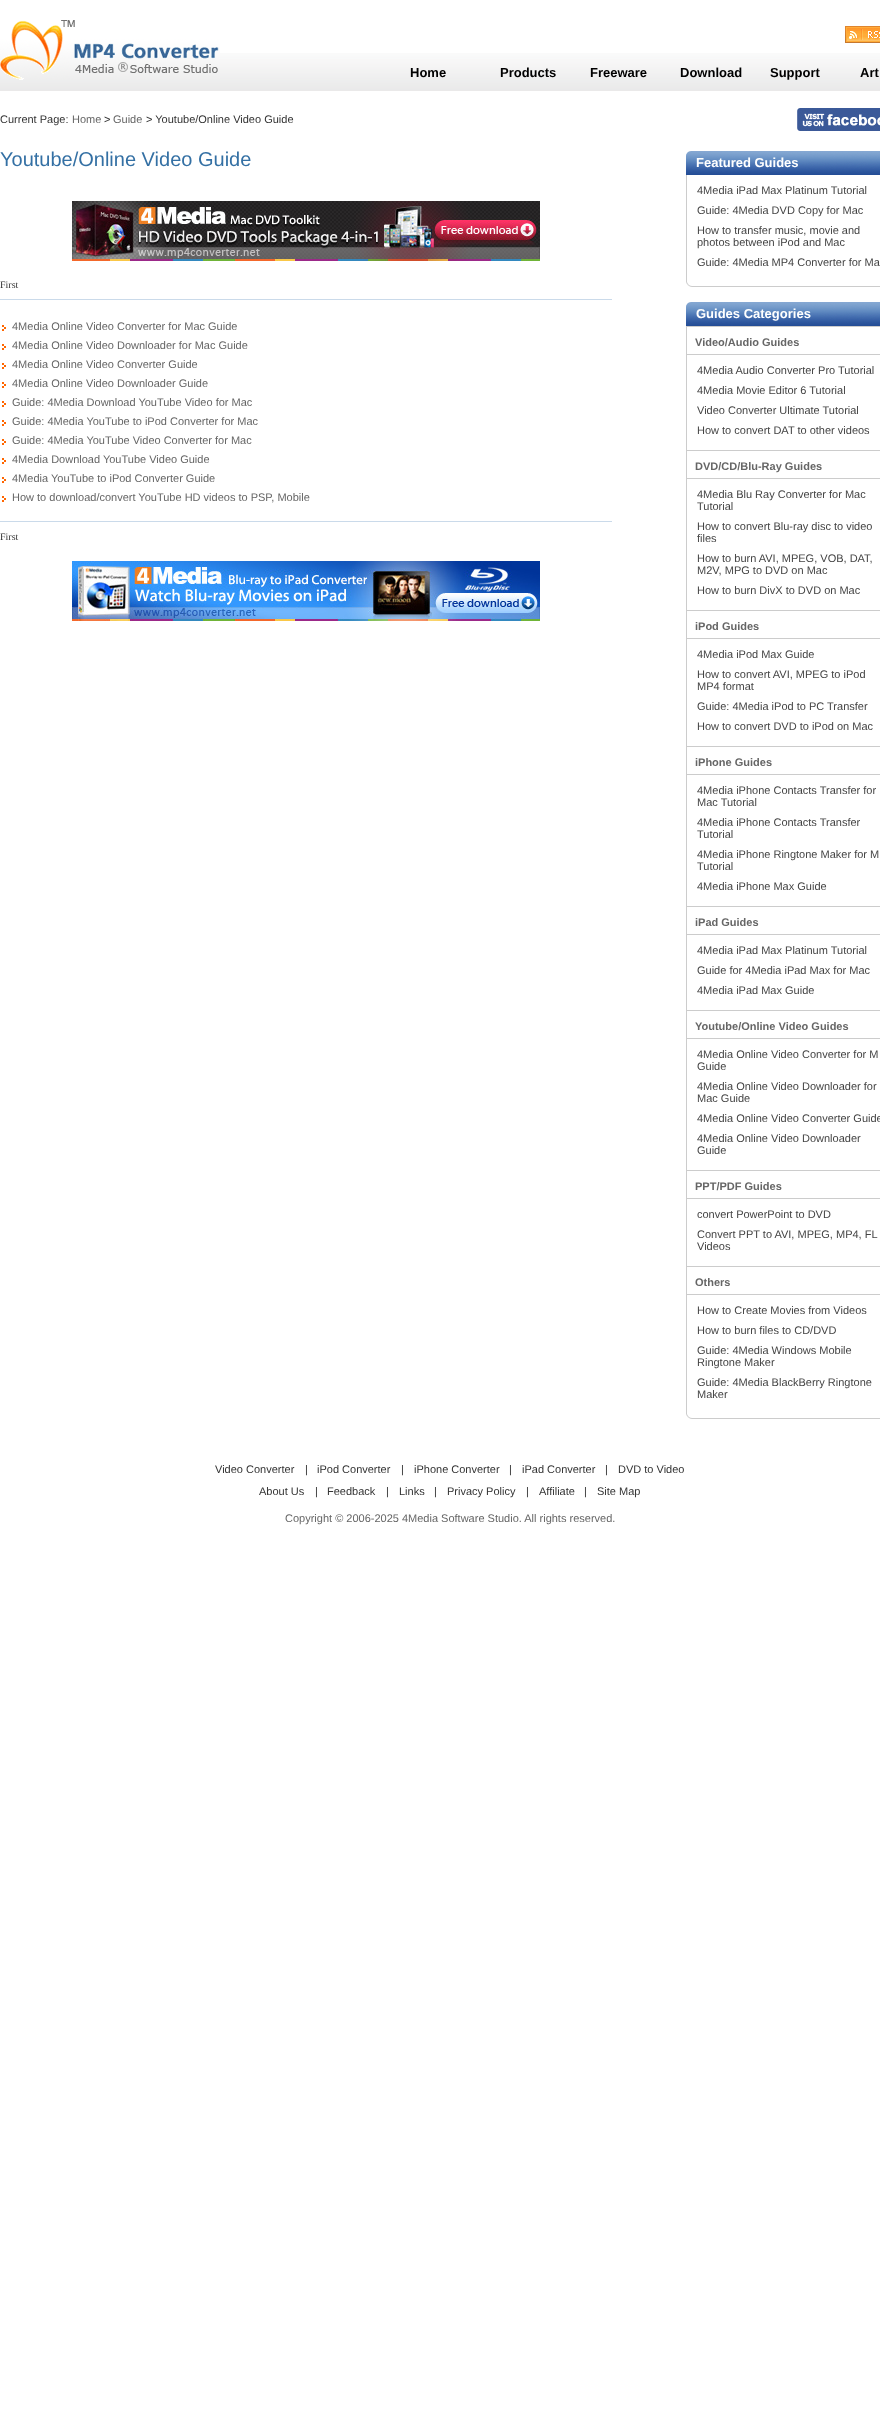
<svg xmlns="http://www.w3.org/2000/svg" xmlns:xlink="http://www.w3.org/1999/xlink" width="880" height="2426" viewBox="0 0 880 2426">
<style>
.cls-1{font:bold 13px Liberation Sans;fill:#000000}
.cls-2{font:11px Liberation Sans;fill:#333333}
.cls-3{font:11px Liberation Sans;fill:#666666}
.cls-4{font:20px Liberation Sans;fill:#3470a4}
.cls-5{font:10px Liberation Serif;fill:#333333}
.cls-6{font:bold 13px Liberation Sans;fill:#ffffff}
.cls-7{font:11px Liberation Sans;fill:#444444}
.cls-8{font:bold 11px Liberation Sans;fill:#666666}
</style>
<rect width="100%" height="100%" fill="#ffffff"/>
<image xlink:href="image0.png" x="0" y="53" width="880" height="38"/>
<image xlink:href="image1.png" x="0" y="20" width="220" height="60"/>
<image xlink:href="image2.png" x="845" y="26" width="35" height="17"/>
<image xlink:href="image3.png" x="797" y="108" width="83" height="23"/>
<image xlink:href="image4.png" x="72" y="201" width="468" height="60"/>
<rect fill="#cadaea" x="0" y="299" width="612" height="1"/>
<image xlink:href="image5.png" x="2" y="325" width="4" height="6"/>
<image xlink:href="image5.png" x="2" y="344" width="4" height="6"/>
<image xlink:href="image5.png" x="2" y="363" width="4" height="6"/>
<image xlink:href="image5.png" x="2" y="382" width="4" height="6"/>
<image xlink:href="image5.png" x="2" y="401" width="4" height="6"/>
<image xlink:href="image5.png" x="2" y="420" width="4" height="6"/>
<image xlink:href="image5.png" x="2" y="439" width="4" height="6"/>
<image xlink:href="image5.png" x="2" y="458" width="4" height="6"/>
<image xlink:href="image5.png" x="2" y="477" width="4" height="6"/>
<image xlink:href="image5.png" x="2" y="496" width="4" height="6"/>
<rect fill="#cadaea" x="0" y="521" width="612" height="1"/>
<image xlink:href="image6.png" x="72" y="561" width="468" height="60"/>
<image xlink:href="image7.png" x="686" y="282" width="194" height="5"/>
<image xlink:href="image8.png" x="686" y="151" width="194" height="24"/>
<rect fill="#cccccc" x="686" y="175" width="1" height="107"/>
<image xlink:href="image7.png" x="686" y="1414" width="194" height="5"/>
<image xlink:href="image8.png" x="686" y="302" width="194" height="24"/>
<rect fill="none" stroke="#cccccc" x="686.5" y="326.5" width="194" height="28"/>
<rect fill="#cccccc" x="686" y="355" width="1" height="95"/>
<rect fill="none" stroke="#cccccc" x="686.5" y="450.5" width="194" height="28"/>
<rect fill="#cccccc" x="686" y="479" width="1" height="131"/>
<rect fill="none" stroke="#cccccc" x="686.5" y="610.5" width="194" height="28"/>
<rect fill="#cccccc" x="686" y="639" width="1" height="107"/>
<rect fill="none" stroke="#cccccc" x="686.5" y="746.5" width="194" height="28"/>
<rect fill="#cccccc" x="686" y="775" width="1" height="131"/>
<rect fill="none" stroke="#cccccc" x="686.5" y="906.5" width="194" height="28"/>
<rect fill="#cccccc" x="686" y="935" width="1" height="75"/>
<rect fill="none" stroke="#cccccc" x="686.5" y="1010.5" width="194" height="28"/>
<rect fill="#cccccc" x="686" y="1039" width="1" height="131"/>
<rect fill="none" stroke="#cccccc" x="686.5" y="1170.5" width="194" height="28"/>
<rect fill="#cccccc" x="686" y="1199" width="1" height="67"/>
<rect fill="none" stroke="#cccccc" x="686.5" y="1266.5" width="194" height="28"/>
<rect fill="#cccccc" x="686" y="1295" width="1" height="119"/>
<text class="cls-1" x="410" y="77">Home</text>
<text class="cls-1" x="500" y="77">Products</text>
<text class="cls-1" x="590" y="77">Freeware</text>
<text class="cls-1" x="680" y="77">Download</text>
<text class="cls-1" x="770" y="77">Support</text>
<text class="cls-1" x="860" y="77">Art</text>
<text class="cls-2" x="0" y="123">Current Page:</text>
<text class="cls-3" x="72" y="123">Home</text>
<text class="cls-2" x="104" y="123">&gt;</text>
<text class="cls-3" x="113" y="123">Guide</text>
<text class="cls-2" x="146" y="123">&gt; Youtube/Online Video Guide</text>
<text class="cls-4" x="0" y="166">Youtube/Online Video Guide</text>
<text class="cls-5" x="0" y="288">First</text>
<text class="cls-3"><tspan x="12" y="330">4Media Online Video Converter for Mac Guide</tspan><tspan x="12" y="349">4Media Online Video Downloader for Mac Guide</tspan><tspan x="12" y="368">4Media Online Video Converter Guide</tspan><tspan x="12" y="387">4Media Online Video Downloader Guide</tspan><tspan x="12" y="406">Guide: 4Media Download YouTube Video for Mac</tspan><tspan x="12" y="425">Guide: 4Media YouTube to iPod Converter for Mac</tspan><tspan x="12" y="444">Guide: 4Media YouTube Video Converter for Mac</tspan><tspan x="12" y="463">4Media Download YouTube Video Guide</tspan><tspan x="12" y="482">4Media YouTube to iPod Converter Guide</tspan><tspan x="12" y="501">How to download/convert YouTube HD videos to PSP, Mobile</tspan></text>
<text class="cls-5" x="0" y="540">First</text>
<text class="cls-6" x="696" y="167">Featured Guides</text>
<text class="cls-7"><tspan x="697" y="194">4Media iPad Max Platinum Tutorial</tspan><tspan x="697" y="214">Guide: 4Media DVD Copy for Mac</tspan><tspan x="697" y="234">How to transfer music, movie and</tspan><tspan x="697" y="246">photos between iPod and Mac</tspan><tspan x="697" y="266">Guide: 4Media MP4 Converter for Ma</tspan></text>
<text class="cls-6" x="696" y="318">Guides Categories</text>
<text class="cls-8" x="695" y="346">Video/Audio Guides</text>
<text class="cls-7"><tspan x="697" y="374">4Media Audio Converter Pro Tutorial</tspan><tspan x="697" y="394">4Media Movie Editor 6 Tutorial</tspan><tspan x="697" y="414">Video Converter Ultimate Tutorial</tspan><tspan x="697" y="434">How to convert DAT to other videos</tspan></text>
<text class="cls-8" x="695" y="470">DVD/CD/Blu-Ray Guides</text>
<text class="cls-7"><tspan x="697" y="498">4Media Blu Ray Converter for Mac</tspan><tspan x="697" y="510">Tutorial</tspan><tspan x="697" y="530">How to convert Blu-ray disc to video</tspan><tspan x="697" y="542">files</tspan><tspan x="697" y="562">How to burn AVI, MPEG, VOB, DAT,</tspan><tspan x="697" y="574">M2V, MPG to DVD on Mac</tspan><tspan x="697" y="594">How to burn DivX to DVD on Mac</tspan></text>
<text class="cls-8" x="695" y="630">iPod Guides</text>
<text class="cls-7"><tspan x="697" y="658">4Media iPod Max Guide</tspan><tspan x="697" y="678">How to convert AVI, MPEG to iPod</tspan><tspan x="697" y="690">MP4 format</tspan><tspan x="697" y="710">Guide: 4Media iPod to PC Transfer</tspan><tspan x="697" y="730">How to convert DVD to iPod on Mac</tspan></text>
<text class="cls-8" x="695" y="766">iPhone Guides</text>
<text class="cls-7"><tspan x="697" y="794">4Media iPhone Contacts Transfer for</tspan><tspan x="697" y="806">Mac Tutorial</tspan><tspan x="697" y="826">4Media iPhone Contacts Transfer</tspan><tspan x="697" y="838">Tutorial</tspan><tspan x="697" y="858">4Media iPhone Ringtone Maker for M</tspan><tspan x="697" y="870">Tutorial</tspan><tspan x="697" y="890">4Media iPhone Max Guide</tspan></text>
<text class="cls-8" x="695" y="926">iPad Guides</text>
<text class="cls-7"><tspan x="697" y="954">4Media iPad Max Platinum Tutorial</tspan><tspan x="697" y="974">Guide for 4Media iPad Max for Mac</tspan><tspan x="697" y="994">4Media iPad Max Guide</tspan></text>
<text class="cls-8" x="695" y="1030">Youtube/Online Video Guides</text>
<text class="cls-7"><tspan x="697" y="1058">4Media Online Video Converter for M</tspan><tspan x="697" y="1070">Guide</tspan><tspan x="697" y="1090">4Media Online Video Downloader for</tspan><tspan x="697" y="1102">Mac Guide</tspan><tspan x="697" y="1122">4Media Online Video Converter Guide</tspan><tspan x="697" y="1142">4Media Online Video Downloader</tspan><tspan x="697" y="1154">Guide</tspan></text>
<text class="cls-8" x="695" y="1190">PPT/PDF Guides</text>
<text class="cls-7"><tspan x="697" y="1218">convert PowerPoint to DVD</tspan><tspan x="697" y="1238">Convert PPT to AVI, MPEG, MP4, FL</tspan><tspan x="697" y="1250">Videos</tspan></text>
<text class="cls-8" x="695" y="1286">Others</text>
<text class="cls-7"><tspan x="697" y="1314">How to Create Movies from Videos</tspan><tspan x="697" y="1334">How to burn files to CD/DVD</tspan><tspan x="697" y="1354">Guide: 4Media Windows Mobile</tspan><tspan x="697" y="1366">Ringtone Maker</tspan><tspan x="697" y="1386">Guide: 4Media BlackBerry Ringtone</tspan><tspan x="697" y="1398">Maker</tspan></text>
<text class="cls-2" x="215" y="1473">Video Converter</text>
<text class="cls-2" x="305" y="1473">|</text>
<text class="cls-2" x="317" y="1473">iPod Converter</text>
<text class="cls-2" x="401" y="1473">|</text>
<text class="cls-2" x="414" y="1473">iPhone Converter</text>
<text class="cls-2" x="509" y="1473">|</text>
<text class="cls-2" x="522" y="1473">iPad Converter</text>
<text class="cls-2" x="605" y="1473">|</text>
<text class="cls-2" x="618" y="1473">DVD to Video</text>
<text class="cls-2" x="259" y="1495">About Us</text>
<text class="cls-2" x="315" y="1495">|</text>
<text class="cls-2" x="327" y="1495">Feedback</text>
<text class="cls-2" x="386" y="1495">|</text>
<text class="cls-2" x="399" y="1495">Links</text>
<text class="cls-2" x="434" y="1495">|</text>
<text class="cls-2" x="447" y="1495">Privacy Policy</text>
<text class="cls-2" x="526" y="1495">|</text>
<text class="cls-2" x="539" y="1495">Affiliate</text>
<text class="cls-2" x="584" y="1495">|</text>
<text class="cls-2" x="597" y="1495">Site Map</text>
<text class="cls-3" x="285" y="1522">Copyright © 2006-2025 4Media Software Studio. All rights reserved.</text>
</svg>
